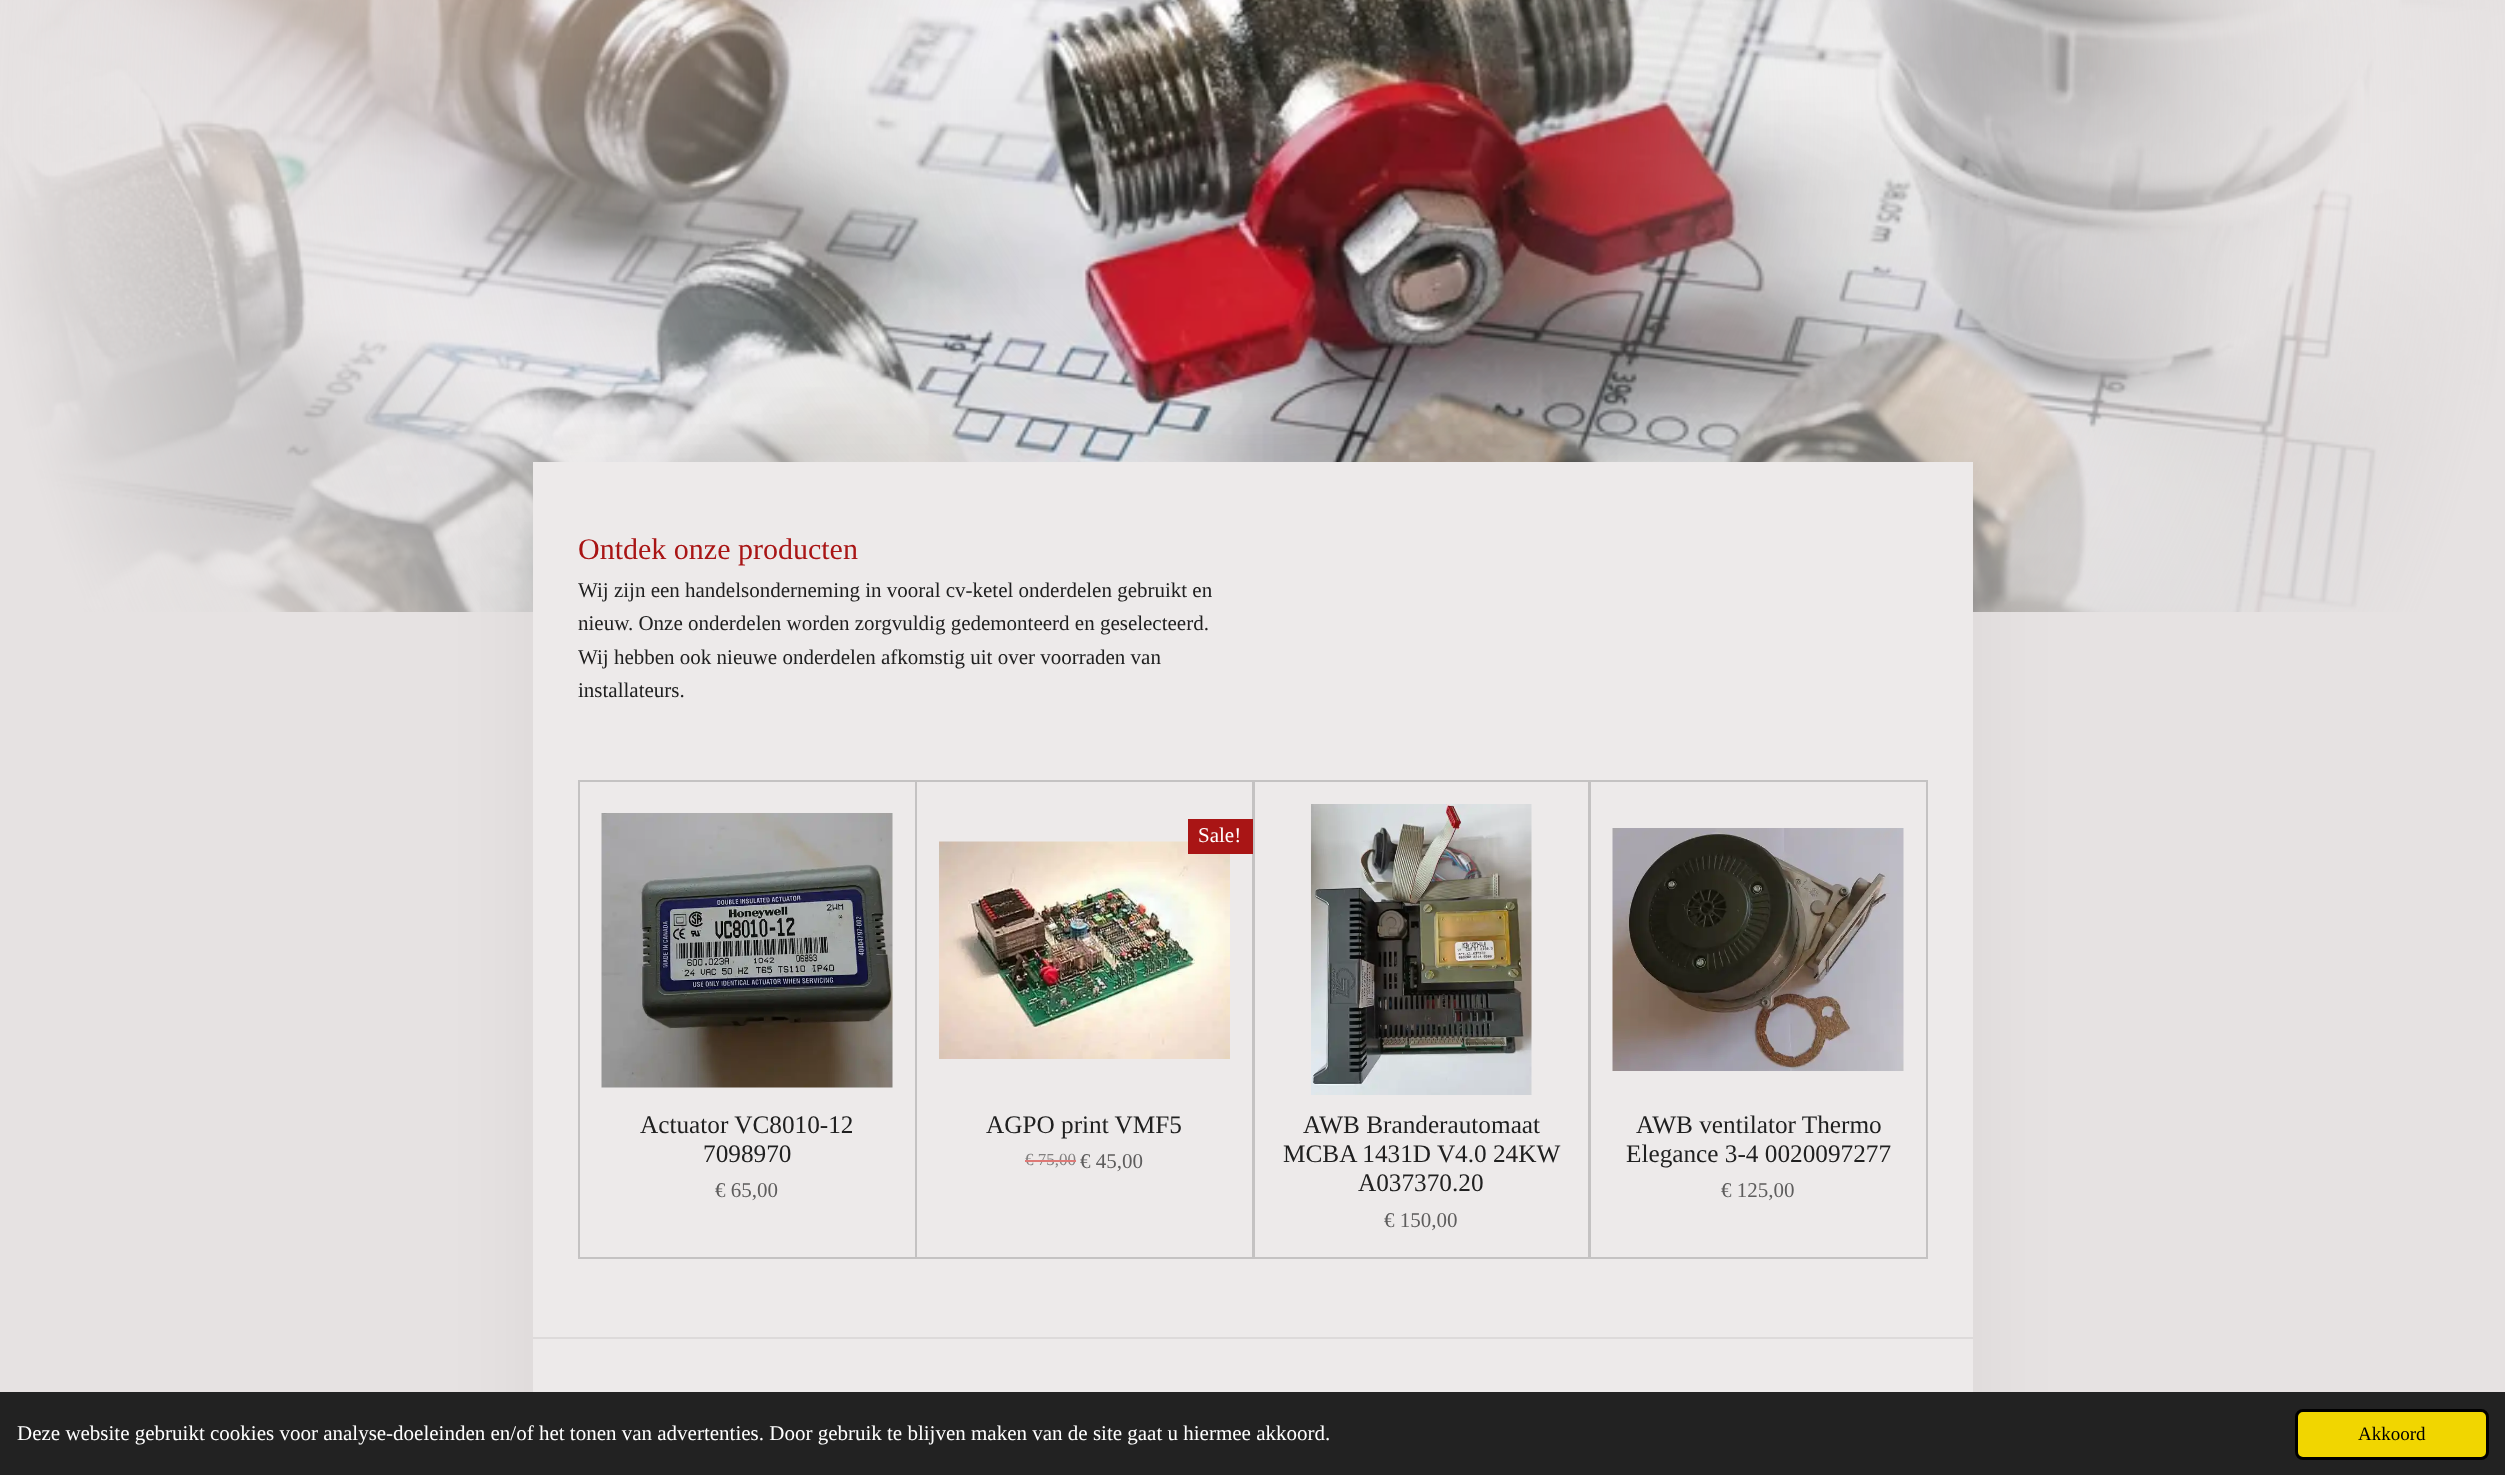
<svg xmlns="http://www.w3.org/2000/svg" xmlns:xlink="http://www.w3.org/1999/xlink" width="2505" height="1475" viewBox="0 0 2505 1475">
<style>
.cls-1{font:30px Liberation Serif;fill:#a91515}
.cls-2{font:21px Liberation Serif;fill:#202020}
.cls-3{font:25.25px Liberation Serif;fill:#202020}
.cls-4{font:21px Liberation Serif;fill:#5e5d5d}
.cls-5{font:21px Liberation Serif;fill:#ffffff}
.cls-6{font:17px Liberation Serif;fill:#828080}
.cls-7{font:19px Liberation Serif;fill:#000000}
</style>
<rect width="100%" height="100%" fill="#e6e2e2"/>
<image xlink:href="image0.png" x="0" y="0" width="2505" height="612"/>
<rect fill="#000000" fill-opacity="0.05" filter="blur(45px)" x="533" y="462" width="1440" height="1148"/>
<rect fill="#edeaea" x="533" y="462" width="1440" height="930"/>
<rect fill="none" stroke="#c4c2c2" stroke-width="2" x="579" y="781" width="337" height="477"/>
<image xlink:href="image1.png" x="601" y="813" width="292" height="275"/>
<rect fill="none" stroke="#c4c2c2" stroke-width="2" x="916" y="781" width="337" height="477"/>
<image xlink:href="image2.png" x="939" y="841" width="291" height="218"/>
<rect fill="#a91515" x="1188" y="819" width="65" height="35"/>
<rect fill="none" stroke="#c4c2c2" stroke-width="2" x="1254" y="781" width="335" height="477"/>
<image xlink:href="image3.png" x="1311" y="804" width="221" height="291"/>
<rect fill="none" stroke="#c4c2c2" stroke-width="2" x="1590" y="781" width="337" height="477"/>
<image xlink:href="image4.png" x="1612" y="828" width="292" height="243"/>
<rect fill="#dddada" x="533" y="1337" width="1440" height="2"/>
<rect fill="#222222" x="0" y="1392" width="2505" height="83"/>
<rect fill="#f1d600" stroke="#000000" stroke-width="3" x="2296.5" y="1410.5" width="191" height="48" rx="6.5"/>
<text class="cls-1" x="578" y="559">Ontdek onze producten</text>
<text class="cls-2"><tspan x="578" y="597">Wij zijn een handelsonderneming in vooral cv-ketel onderdelen gebruikt en</tspan><tspan x="578" y="630">nieuw. Onze onderdelen worden zorgvuldig gedemonteerd en geselecteerd.</tspan><tspan x="578" y="664">Wij hebben ook nieuwe onderdelen afkomstig uit over voorraden van</tspan><tspan x="578" y="697">installateurs.</tspan></text>
<text class="cls-3" x="640" y="1133">Actuator VC8010-12</text>
<text class="cls-3" x="703" y="1162">7098970</text>
<text class="cls-4" x="715" y="1197">€ 65,00</text>
<text class="cls-5" x="1198" y="842">Sale!</text>
<text class="cls-3" x="986" y="1133">AGPO print VMF5</text>
<text class="cls-6" x="1025" y="1165">€ 75,00</text>
<rect fill="#de7976" x="1025" y="1160" width="51" height="2"/>
<text class="cls-4" x="1080" y="1168">€ 45,00</text>
<text class="cls-3" x="1303" y="1133">AWB Branderautomaat</text>
<text class="cls-3" x="1283" y="1162">MCBA 1431D V4.0 24KW</text>
<text class="cls-3" x="1358" y="1191">A037370.20</text>
<text class="cls-4" x="1384" y="1227">€ 150,00</text>
<text class="cls-3" x="1636" y="1133">AWB ventilator Thermo</text>
<text class="cls-3" x="1626" y="1162">Elegance 3-4 0020097277</text>
<text class="cls-4" x="1721" y="1197">€ 125,00</text>
<text class="cls-5" x="17" y="1440">Deze website gebruikt cookies voor analyse-doeleinden en/of het tonen van advertenties. Door gebruik te blijven maken van de site gaat u hiermee akkoord.</text>
<text class="cls-7" x="2358" y="1440">Akkoord</text>
</svg>
